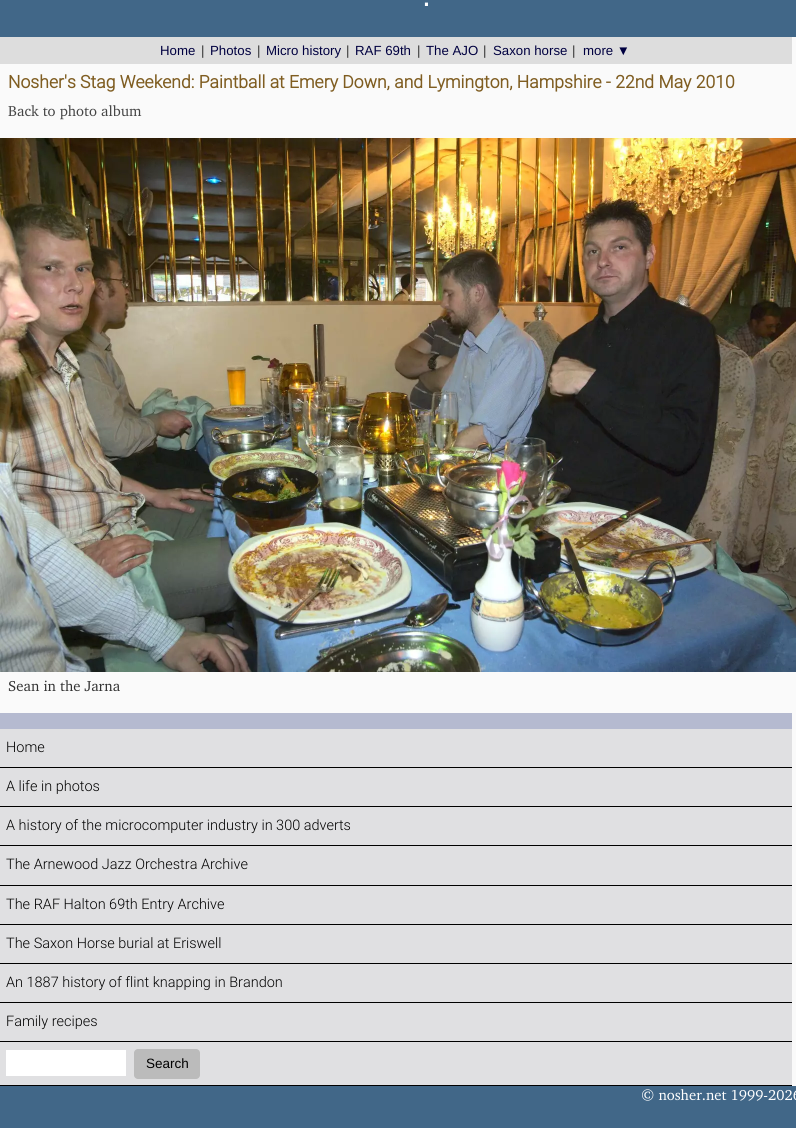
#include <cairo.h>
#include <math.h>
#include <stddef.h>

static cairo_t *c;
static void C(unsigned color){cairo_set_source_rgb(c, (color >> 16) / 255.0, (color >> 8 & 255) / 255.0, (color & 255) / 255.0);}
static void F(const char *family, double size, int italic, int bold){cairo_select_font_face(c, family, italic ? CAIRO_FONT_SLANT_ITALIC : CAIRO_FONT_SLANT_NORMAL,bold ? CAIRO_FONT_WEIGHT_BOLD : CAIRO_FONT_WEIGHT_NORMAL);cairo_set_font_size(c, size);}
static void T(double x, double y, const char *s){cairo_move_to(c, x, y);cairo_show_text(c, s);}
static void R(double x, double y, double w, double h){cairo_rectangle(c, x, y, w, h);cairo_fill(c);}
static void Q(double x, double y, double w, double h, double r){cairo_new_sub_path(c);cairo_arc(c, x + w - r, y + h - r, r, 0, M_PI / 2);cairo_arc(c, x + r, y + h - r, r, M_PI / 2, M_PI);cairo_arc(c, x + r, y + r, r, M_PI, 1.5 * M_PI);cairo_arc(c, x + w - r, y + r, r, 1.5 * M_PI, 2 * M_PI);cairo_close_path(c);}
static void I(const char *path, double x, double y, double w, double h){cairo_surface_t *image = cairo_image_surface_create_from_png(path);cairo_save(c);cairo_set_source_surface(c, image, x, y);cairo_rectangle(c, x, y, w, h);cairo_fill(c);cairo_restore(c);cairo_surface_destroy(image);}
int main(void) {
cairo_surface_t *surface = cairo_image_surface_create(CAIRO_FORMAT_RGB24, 796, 1128);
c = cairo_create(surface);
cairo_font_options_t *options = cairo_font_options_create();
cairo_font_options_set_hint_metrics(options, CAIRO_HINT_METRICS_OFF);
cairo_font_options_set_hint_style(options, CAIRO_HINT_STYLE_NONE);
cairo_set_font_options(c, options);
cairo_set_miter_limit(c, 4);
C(0xfafafa);
cairo_paint(c);
C(0x416788);
R(0,0,796,37);
F("Liberation Sans",32,0,0);
C(0xffffff);
T(422,6,".");
C(0xdddddd);
R(0,37,792,27);
F("Liberation Sans",13.25,0,0);
C(0x000040);
T(160,55,"Home");
C(0x333333);
T(201,55,"|");
C(0x000040);
T(210,55,"Photos");
C(0x333333);
T(257,55,"|");
C(0x000040);
T(266,55,"Micro history");
C(0x333333);
T(346,55,"|");
C(0x000040);
T(355,55,"RAF 69th");
C(0x333333);
T(417,55,"|");
C(0x000040);
T(426,55,"The AJO");
C(0x333333);
T(483,55,"|");
C(0x000040);
T(493,55,"Saxon horse");
C(0x333333);
T(572,55,"|");
C(0x000040);
T(583,55,"more ▼");
F("Roboto",17.6,0,1);
C(0x7f5d21);
T(8,88,"Nosher's Stag Weekend: Paintball at Emery Down, and Lymington, Hampshire - 22nd May 2010");
F("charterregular",14.75,0,0);
C(0x444444);
T(8,116,"Back to photo album");
I("1.png",0,138,796,534);
C(0x333333);
T(8,691,"Sean in the Jarna");
C(0xb5bad0);
R(0,713,792,16);
C(0xe0e0e2);
R(0,729,792,356);
C(0x000000);
R(0,767,792,1);
F("Roboto Light",14.5,0,0);
T(6,752,"Home");
R(0,806,792,1);
T(6,791,"A life in photos");
R(0,845,792,1);
T(6,830,"A history of the microcomputer industry in 300 adverts");
R(0,885,792,1);
T(6,869,"The Arnewood Jazz Orchestra Archive");
R(0,924,792,1);
T(6,909,"The RAF Halton 69th Entry Archive");
R(0,963,792,1);
T(6,948,"The Saxon Horse burial at Eriswell");
R(0,1002,792,1);
T(6,987,"An 1887 history of flint knapping in Brandon");
R(0,1041,792,1);
T(6,1026,"Family recipes");
R(0,1085,792,1);
C(0xffffff);
R(6,1050,120,26);
C(0xbbbbbb);
Q(134,1049,66,30,4);
cairo_fill(c);
F("Liberation Sans",13.5,0,0);
C(0x000000);
T(146,1068,"Search");
C(0x416788);
R(0,1086,796,42);
F("charterregular",14.75,0,0);
C(0xffffff);
T(641,1100,"© nosher.net 1999-2026");
cairo_surface_write_to_png(surface, "o.png");
cairo_font_options_destroy(options);
cairo_destroy(c);
cairo_surface_destroy(surface);
return 0;
}
